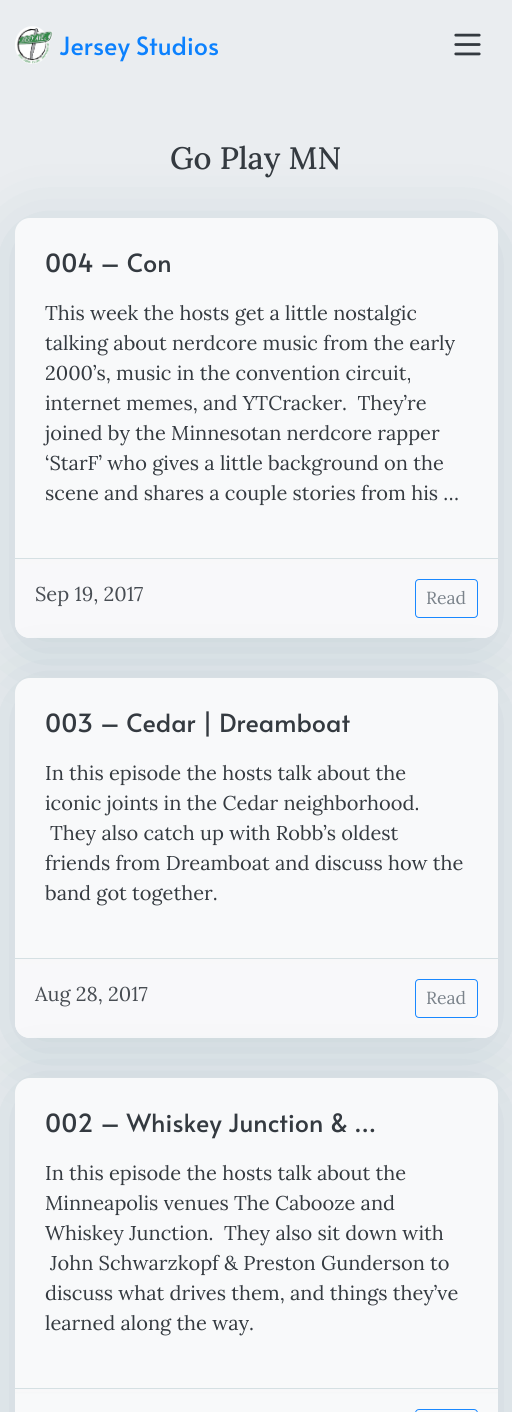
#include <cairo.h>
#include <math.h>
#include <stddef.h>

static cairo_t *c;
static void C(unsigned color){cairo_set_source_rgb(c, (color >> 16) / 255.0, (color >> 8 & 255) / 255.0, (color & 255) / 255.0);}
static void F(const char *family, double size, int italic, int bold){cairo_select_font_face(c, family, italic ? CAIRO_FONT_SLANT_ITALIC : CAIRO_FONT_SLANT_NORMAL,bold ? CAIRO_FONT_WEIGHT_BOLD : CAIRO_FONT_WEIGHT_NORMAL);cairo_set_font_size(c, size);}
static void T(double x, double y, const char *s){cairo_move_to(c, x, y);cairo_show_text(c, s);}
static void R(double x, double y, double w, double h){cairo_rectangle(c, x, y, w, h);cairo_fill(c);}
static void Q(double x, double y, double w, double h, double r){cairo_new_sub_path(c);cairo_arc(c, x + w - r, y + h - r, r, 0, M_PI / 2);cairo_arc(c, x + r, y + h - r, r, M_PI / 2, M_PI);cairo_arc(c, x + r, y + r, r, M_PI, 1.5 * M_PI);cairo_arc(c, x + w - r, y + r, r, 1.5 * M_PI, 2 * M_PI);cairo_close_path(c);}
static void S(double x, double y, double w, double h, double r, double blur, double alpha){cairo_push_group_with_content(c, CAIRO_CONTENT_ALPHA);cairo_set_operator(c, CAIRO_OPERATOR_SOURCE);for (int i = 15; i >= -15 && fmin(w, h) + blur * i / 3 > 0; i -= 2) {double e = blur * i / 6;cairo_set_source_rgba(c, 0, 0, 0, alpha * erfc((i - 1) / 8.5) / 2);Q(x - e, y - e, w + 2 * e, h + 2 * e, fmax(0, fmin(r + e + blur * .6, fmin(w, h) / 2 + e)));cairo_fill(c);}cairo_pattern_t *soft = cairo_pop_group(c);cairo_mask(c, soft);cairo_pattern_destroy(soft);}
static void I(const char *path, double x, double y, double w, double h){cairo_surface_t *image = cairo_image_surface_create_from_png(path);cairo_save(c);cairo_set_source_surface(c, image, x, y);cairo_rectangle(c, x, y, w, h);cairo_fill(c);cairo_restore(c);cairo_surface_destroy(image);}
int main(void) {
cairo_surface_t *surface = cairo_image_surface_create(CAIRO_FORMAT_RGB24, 512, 1412);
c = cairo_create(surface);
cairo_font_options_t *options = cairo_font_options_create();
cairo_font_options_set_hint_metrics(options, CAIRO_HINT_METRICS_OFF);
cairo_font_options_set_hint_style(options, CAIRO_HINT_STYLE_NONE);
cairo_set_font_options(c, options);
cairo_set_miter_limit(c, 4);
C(0xeaedf0);
cairo_paint(c);
I("1.png",15,26,38,38);
F("Alata",25,0,0);
C(0x0c81fe);
T(59,55,"Jersey Studios");
I("2.png",454,33,27,23);
F("Lora Medium",31,0,0);
C(0x343a40);
T(170,169,"Go Play MN");
C(0x0f5064);
S(15,228,483,420,15,35,.16);
C(0xf8f9fa);
Q(15,218,483,420,15);
cairo_fill(c);
cairo_save(c);
Q(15,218,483,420,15);
cairo_clip(c);
cairo_set_fill_rule(c,CAIRO_FILL_RULE_EVEN_ODD);
cairo_new_path(c);
cairo_move_to(c,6,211);
cairo_line_to(c,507,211);
cairo_line_to(c,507,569);
cairo_line_to(c,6,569);
cairo_close_path(c);
cairo_move_to(c,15,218);
cairo_line_to(c,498,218);
cairo_line_to(c,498,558);
cairo_line_to(c,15,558);
cairo_close_path(c);
cairo_clip(c);
C(0x000000);
S(15,220,483,340,0,2.5,.07);
cairo_restore(c);
F("Alata",25,0,0);
C(0x343a40);
T(45,272,"004 – Con");
F("Lora",20,0,0);
T(45,320,"This week the hosts get a little nostalgic");
T(45,350,"talking about nerdcore music from the early");
T(45,380,"2000’s, music in the convention circuit,");
T(45,410,"internet memes, and YTCracker.  They’re");
T(45,440,"joined by the Minnesotan nerdcore rapper");
T(45,470,"‘StarF’ who gives a little background on the");
T(45,500,"scene and shares a couple stories from his …");
cairo_set_source_rgba(c,0.973,0.976,0.98,0.9);
cairo_new_path(c);
cairo_move_to(c,15,558);
cairo_line_to(c,498,558);
cairo_line_to(c,498,623);
cairo_curve_to(c,498,631.5,491.5,638,483,638);
cairo_line_to(c,30,638);
cairo_curve_to(c,21.5,638,15,631.5,15,623);
cairo_close_path(c);
cairo_fill(c);
C(0xd5e0e3);
R(15,558,483,1);
C(0x484d53);
T(35,601,"Sep 19, 2017");
Q(415.5,579.5,62,38,3.5);
C(0x1988ff);
cairo_set_line_width(c,1);
cairo_stroke(c);
F("Lora",17.5,0,0);
C(0x7a828a);
T(426,604,"Read");
C(0x0f5064);
S(15,688,483,360,15,35,.16);
C(0xf8f9fa);
Q(15,678,483,360,15);
cairo_fill(c);
cairo_save(c);
Q(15,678,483,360,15);
cairo_clip(c);
cairo_set_fill_rule(c,CAIRO_FILL_RULE_EVEN_ODD);
cairo_new_path(c);
cairo_move_to(c,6,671);
cairo_line_to(c,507,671);
cairo_line_to(c,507,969);
cairo_line_to(c,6,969);
cairo_close_path(c);
cairo_move_to(c,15,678);
cairo_line_to(c,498,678);
cairo_line_to(c,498,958);
cairo_line_to(c,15,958);
cairo_close_path(c);
cairo_clip(c);
C(0x000000);
S(15,680,483,280,0,2.5,.07);
cairo_restore(c);
F("Alata",25,0,0);
C(0x343a40);
T(45,732,"003 – Cedar | Dreamboat");
F("Lora",20,0,0);
T(45,780,"In this episode the hosts talk about the");
T(45,810,"iconic joints in the Cedar neighborhood.");
T(50,840,"They also catch up with Robb’s oldest");
T(45,870,"friends from Dreamboat and discuss how the");
T(45,900,"band got together.");
cairo_set_source_rgba(c,0.973,0.976,0.98,0.9);
cairo_new_path(c);
cairo_move_to(c,15,958);
cairo_line_to(c,498,958);
cairo_line_to(c,498,1023);
cairo_curve_to(c,498,1031.5,491.5,1038,483,1038);
cairo_line_to(c,30,1038);
cairo_curve_to(c,21.5,1038,15,1031.5,15,1023);
cairo_close_path(c);
cairo_fill(c);
C(0xd5e0e3);
R(15,958,483,1);
C(0x484d53);
T(35,1001,"Aug 28, 2017");
Q(415.5,979.5,62,38,3.5);
C(0x1988ff);
cairo_stroke(c);
F("Lora",17.5,0,0);
C(0x7a828a);
T(426,1004,"Read");
C(0x0f5064);
S(15,1088,483,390,15,35,.16);
C(0xf8f9fa);
Q(15,1078,483,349,15);
cairo_fill(c);
cairo_save(c);
Q(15,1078,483,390,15);
cairo_clip(c);
cairo_set_fill_rule(c,CAIRO_FILL_RULE_EVEN_ODD);
cairo_new_path(c);
cairo_move_to(c,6,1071);
cairo_line_to(c,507,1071);
cairo_line_to(c,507,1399);
cairo_line_to(c,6,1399);
cairo_close_path(c);
cairo_move_to(c,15,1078);
cairo_line_to(c,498,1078);
cairo_line_to(c,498,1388);
cairo_line_to(c,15,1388);
cairo_close_path(c);
cairo_clip(c);
C(0x000000);
S(15,1080,483,310,0,2.5,.07);
cairo_restore(c);
F("Alata",25,0,0);
C(0x343a40);
T(45,1132,"002 – Whiskey Junction & …");
F("Lora",20,0,0);
T(45,1180,"In this episode the hosts talk about the");
T(45,1210,"Minneapolis venues The Cabooze and");
T(45,1240,"Whiskey Junction.  They also sit down with");
T(50,1270,"John Schwarzkopf & Preston Gunderson to");
T(45,1300,"discuss what drives them, and things they’ve");
T(45,1330,"learned along the way.");
cairo_set_source_rgba(c,0.973,0.976,0.98,0.9);
R(15,1389,483,3);
C(0xd5e0e3);
R(15,1388,483,1);
Q(415.5,1409.5,62,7,3.5);
C(0x1988ff);
cairo_stroke(c);
cairo_surface_write_to_png(surface, "o.png");
cairo_font_options_destroy(options);
cairo_destroy(c);
cairo_surface_destroy(surface);
return 0;
}
